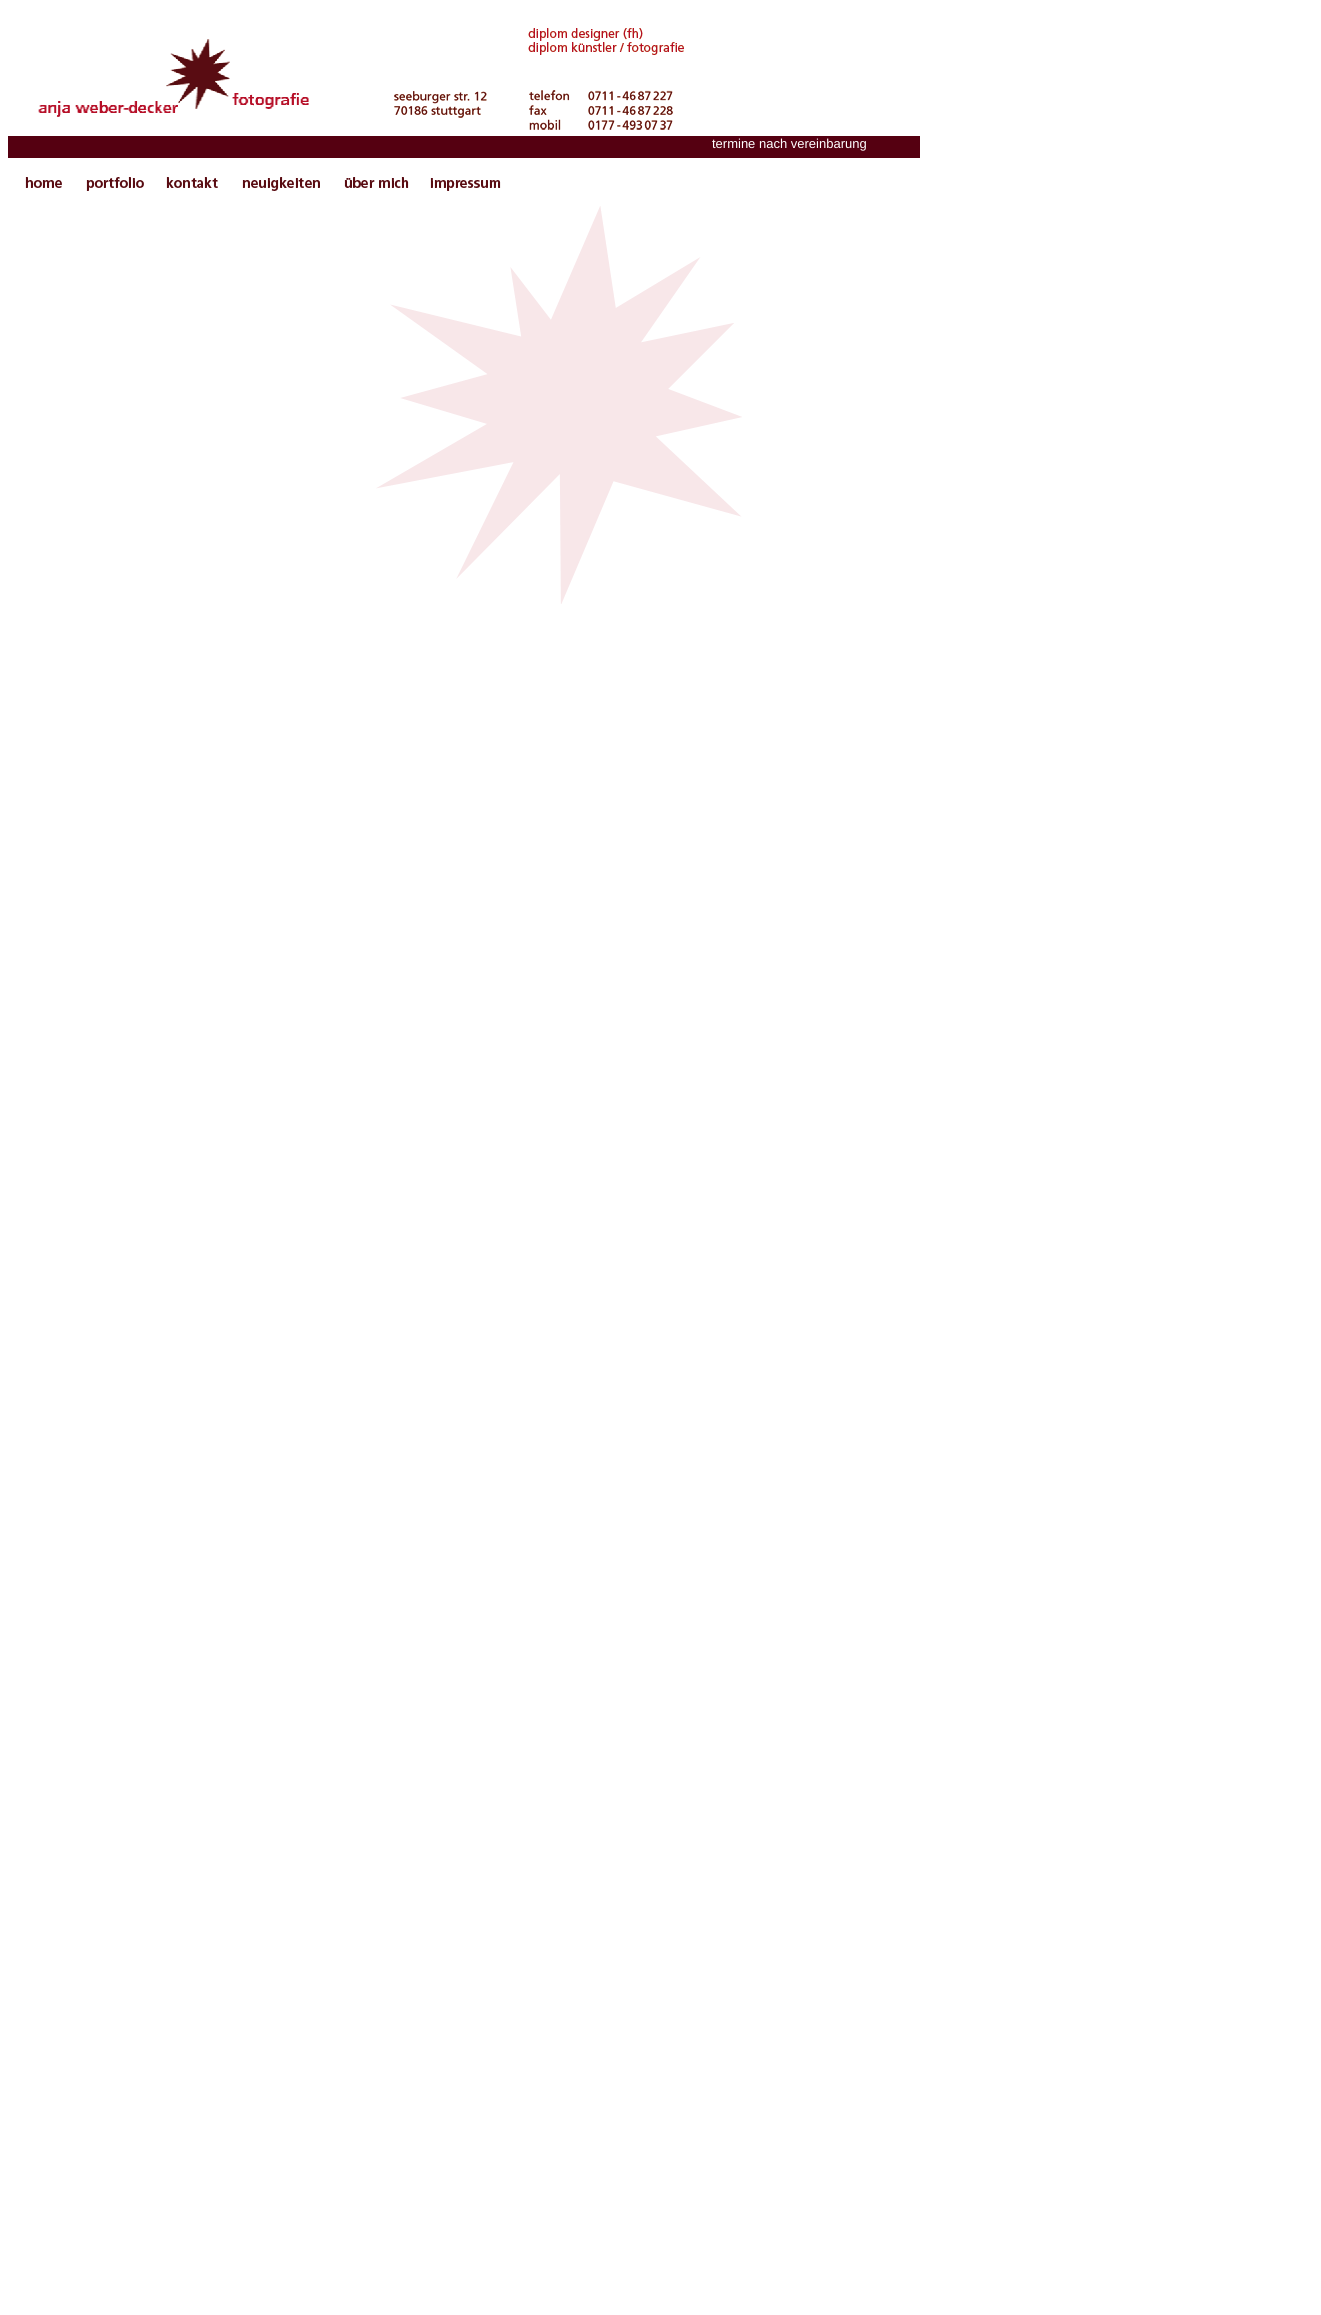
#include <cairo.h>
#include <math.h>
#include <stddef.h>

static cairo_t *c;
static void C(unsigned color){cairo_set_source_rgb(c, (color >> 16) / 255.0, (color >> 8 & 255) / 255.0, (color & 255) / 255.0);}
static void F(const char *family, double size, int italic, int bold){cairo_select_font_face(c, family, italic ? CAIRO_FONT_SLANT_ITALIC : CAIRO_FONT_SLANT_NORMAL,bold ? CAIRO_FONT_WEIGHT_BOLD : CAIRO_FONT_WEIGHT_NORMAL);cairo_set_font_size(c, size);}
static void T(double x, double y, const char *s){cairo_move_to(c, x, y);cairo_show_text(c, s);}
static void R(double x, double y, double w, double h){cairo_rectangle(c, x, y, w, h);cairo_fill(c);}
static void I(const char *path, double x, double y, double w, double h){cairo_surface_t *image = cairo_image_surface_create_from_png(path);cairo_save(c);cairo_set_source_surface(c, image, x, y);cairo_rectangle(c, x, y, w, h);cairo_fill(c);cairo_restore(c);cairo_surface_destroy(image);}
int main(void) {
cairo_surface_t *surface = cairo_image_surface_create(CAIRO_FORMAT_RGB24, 1321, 2315);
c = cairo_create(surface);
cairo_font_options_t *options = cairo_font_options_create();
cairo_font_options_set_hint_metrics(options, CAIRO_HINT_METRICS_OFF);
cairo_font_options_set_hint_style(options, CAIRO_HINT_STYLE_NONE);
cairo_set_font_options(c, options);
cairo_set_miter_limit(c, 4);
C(0xffffff);
cairo_paint(c);
I("1.png",38,39,271,78);
I("2.png",394,28,290,102);
C(0x550011);
R(8,136,912,22);
F("Liberation Sans",13,0,0);
C(0xffffff);
T(712,148,"termine nach vereinbarung");
I("3.png",25,177,37,11);
I("4.png",86,177,58,14);
I("5.png",166,177,52,11);
I("6.png",242,177,78,14);
I("7.png",344,177,65,11);
I("8.png",430,178,71,13);
I("9.png",376,206,366,398);
cairo_surface_write_to_png(surface, "o.png");
cairo_font_options_destroy(options);
cairo_destroy(c);
cairo_surface_destroy(surface);
return 0;
}
